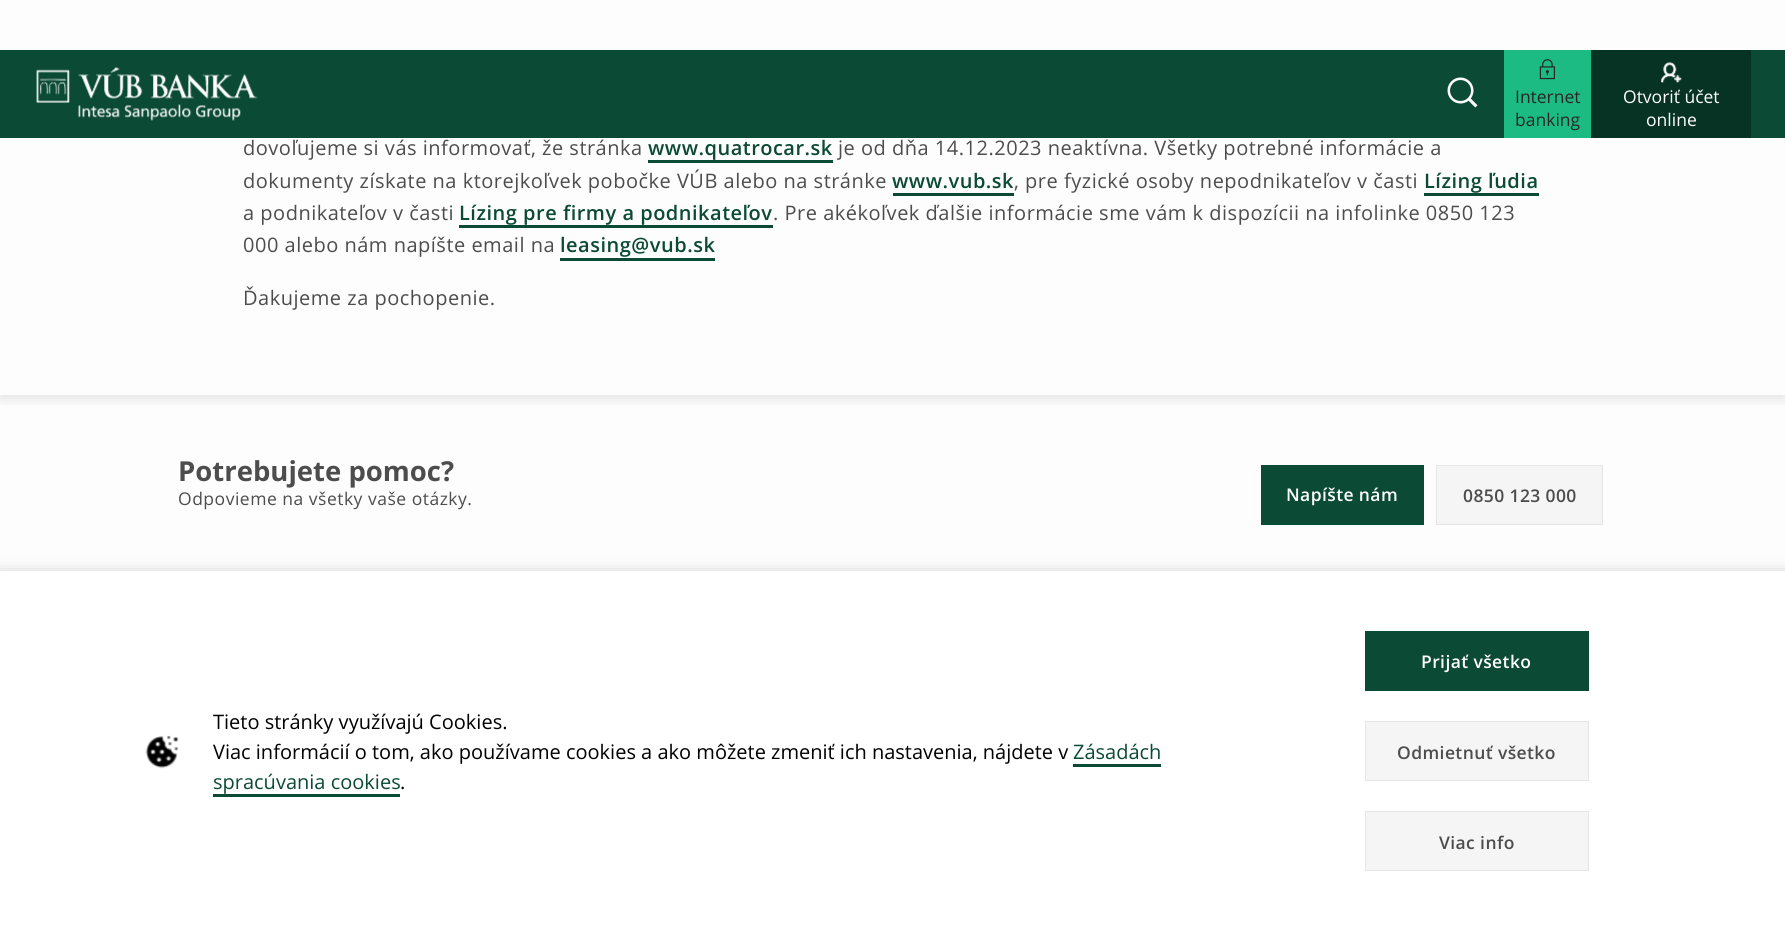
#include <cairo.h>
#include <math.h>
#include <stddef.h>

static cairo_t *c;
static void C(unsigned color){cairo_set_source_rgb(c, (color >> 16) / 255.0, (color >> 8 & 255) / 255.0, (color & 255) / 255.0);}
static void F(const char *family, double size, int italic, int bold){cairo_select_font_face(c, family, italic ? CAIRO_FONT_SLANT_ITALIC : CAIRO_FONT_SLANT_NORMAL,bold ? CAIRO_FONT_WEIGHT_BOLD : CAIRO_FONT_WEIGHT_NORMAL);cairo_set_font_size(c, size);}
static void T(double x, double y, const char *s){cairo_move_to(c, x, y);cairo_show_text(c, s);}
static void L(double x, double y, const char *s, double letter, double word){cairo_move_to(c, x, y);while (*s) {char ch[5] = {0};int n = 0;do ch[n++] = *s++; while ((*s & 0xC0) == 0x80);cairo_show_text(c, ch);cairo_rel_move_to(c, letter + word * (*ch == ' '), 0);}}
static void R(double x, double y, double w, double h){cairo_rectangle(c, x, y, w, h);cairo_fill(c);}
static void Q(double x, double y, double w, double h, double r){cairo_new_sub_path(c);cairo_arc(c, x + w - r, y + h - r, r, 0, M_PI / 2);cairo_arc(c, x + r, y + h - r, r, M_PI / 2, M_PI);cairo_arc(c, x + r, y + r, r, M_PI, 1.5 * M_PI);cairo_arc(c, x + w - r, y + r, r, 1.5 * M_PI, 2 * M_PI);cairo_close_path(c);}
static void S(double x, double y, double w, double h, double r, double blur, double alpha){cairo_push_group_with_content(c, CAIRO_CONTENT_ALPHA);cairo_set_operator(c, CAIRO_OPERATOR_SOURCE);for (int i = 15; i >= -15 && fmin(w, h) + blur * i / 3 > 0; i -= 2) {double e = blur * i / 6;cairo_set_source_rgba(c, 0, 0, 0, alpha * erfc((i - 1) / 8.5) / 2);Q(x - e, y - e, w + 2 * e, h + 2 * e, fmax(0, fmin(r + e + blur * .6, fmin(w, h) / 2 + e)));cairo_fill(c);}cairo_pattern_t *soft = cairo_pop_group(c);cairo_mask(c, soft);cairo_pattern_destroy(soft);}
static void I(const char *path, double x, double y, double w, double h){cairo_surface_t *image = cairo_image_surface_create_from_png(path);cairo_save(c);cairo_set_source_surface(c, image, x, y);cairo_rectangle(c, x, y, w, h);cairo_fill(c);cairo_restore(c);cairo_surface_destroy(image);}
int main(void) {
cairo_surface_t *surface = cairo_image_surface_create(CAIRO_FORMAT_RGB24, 1785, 931);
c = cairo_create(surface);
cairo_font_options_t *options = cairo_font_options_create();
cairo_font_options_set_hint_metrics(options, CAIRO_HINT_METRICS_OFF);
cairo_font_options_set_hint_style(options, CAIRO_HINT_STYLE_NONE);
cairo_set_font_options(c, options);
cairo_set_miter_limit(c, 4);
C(0xfdfdfd);
cairo_paint(c);
cairo_save(c);
cairo_rectangle(c,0,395,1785,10);
cairo_clip(c);
C(0x000000);
S(0,-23,1785,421,0,7.5,.12);
cairo_restore(c);
C(0x0b4a35);
R(0,50,1785,88);
I("1.png",36,67,222,54);
I("2.png",1447,77,31,31);
C(0x1cbb84);
R(1504,50,87,88);
I("3.png",1539,59,16,21);
F("Open Sans",17.5,0,0);
C(0x262626);
T(1515,103,"Internet");
T(1515,126,"banking");
C(0x073325);
R(1591,50,160,88);
I("4.png",1661,62,21,21);
C(0xffffff);
T(1623,103,"Otvoriť účet");
T(1646,126,"online");
F("Open Sans",20,0,0);
C(0x4d4d4d);
L(243,155,"dovoľujeme si vás informovať, že stránka",.5,0);
F("Open Sans SemiBold",20,0,0);
C(0x0b4a35);
L(648,155,"www.quatrocar.sk",.5,0);
R(648,160,185,3);
F("Open Sans",20,0,0);
C(0x4d4d4d);
L(838,155,"je od dňa 14.12.2023 neaktívna. Všetky potrebné informácie a",.5,0);
L(243,188,"dokumenty získate na ktorejkoľvek pobočke VÚB alebo na stránke",.5,0);
F("Open Sans SemiBold",20,0,0);
C(0x0b4a35);
L(892,188,"www.vub.sk",.5,0);
R(893,193,121,3);
F("Open Sans",20,0,0);
C(0x4d4d4d);
L(1014,188,", pre fyzické osoby nepodnikateľov v časti",.5,0);
F("Open Sans SemiBold",20,0,0);
C(0x0b4a35);
L(1424,188,"Lízing ľudia",.5,0);
R(1424,193,115,3);
F("Open Sans",20,0,0);
C(0x4d4d4d);
L(243,220,"a podnikateľov v časti",.5,0);
F("Open Sans SemiBold",20,0,0);
C(0x0b4a35);
L(459,220,"Lízing pre firmy a podnikateľov",.5,0);
R(459,225,314,3);
F("Open Sans",20,0,0);
C(0x4d4d4d);
L(773,220,". Pre akékoľvek ďalšie informácie sme vám k dispozícii na infolinke 0850 123",.5,0);
L(243,252,"000 alebo nám napíšte email na",.5,0);
F("Open Sans SemiBold",20,0,0);
C(0x0b4a35);
L(560,252,"leasing@vub.sk",.5,0);
R(560,258,155,3);
F("Open Sans",20,0,0);
C(0x4d4d4d);
L(243,305,"Ďakujeme za pochopenie.",.5,0);
F("Open Sans",27.5,0,1);
T(178,481,"Potrebujete pomoc?");
F("Open Sans",17.5,0,0);
L(178,505,"Odpovieme na všetky vaše otázky.",.5,0);
C(0x0b4a35);
R(1261,465,163,60);
F("Open Sans SemiBold",17.5,0,0);
C(0xffffff);
L(1286,501,"Napíšte nám",.4,0);
C(0xf5f5f5);
cairo_rectangle(c,1436.5,465.5,166,59);
cairo_fill_preserve(c);
C(0xe6e6e6);
cairo_set_line_width(c,1);
cairo_stroke(c);
C(0x4d4d4d);
L(1463,502,"0850 123 000",.4,0);
C(0x919191);
S(0,579,1785,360,0,9.5,1);
C(0xffffff);
R(0,571,1785,360);
I("5.png",145,735,34,34);
F("Open Sans",20,0,0);
C(0x000000);
T(213,729,"Tieto stránky využívajú Cookies.");
T(213,759,"Viac informácií o tom, ako používame cookies a ako môžete zmeniť ich nastavenia, nájdete v");
C(0x0b4a35);
T(1073,759,"Zásadách");
R(1073,764,88,3);
T(213,789,"spracúvania cookies");
R(213,794,187,3);
C(0x000000);
T(400,789,".");
C(0x0b4a35);
R(1365,631,224,60);
F("Open Sans SemiBold",17.5,0,0);
C(0xffffff);
L(1421,668,"Prijať všetko",.4,0);
C(0xf5f5f5);
cairo_rectangle(c,1365.5,721.5,223,59);
cairo_fill_preserve(c);
C(0xe6e6e6);
cairo_stroke(c);
C(0x4d4d4d);
L(1397,759,"Odmietnuť všetko",.4,0);
C(0xf5f5f5);
cairo_rectangle(c,1365.5,811.5,223,59);
cairo_fill_preserve(c);
C(0xe6e6e6);
cairo_stroke(c);
C(0x4d4d4d);
L(1439,849,"Viac info",.4,0);
cairo_surface_write_to_png(surface, "o.png");
cairo_font_options_destroy(options);
cairo_destroy(c);
cairo_surface_destroy(surface);
return 0;
}
